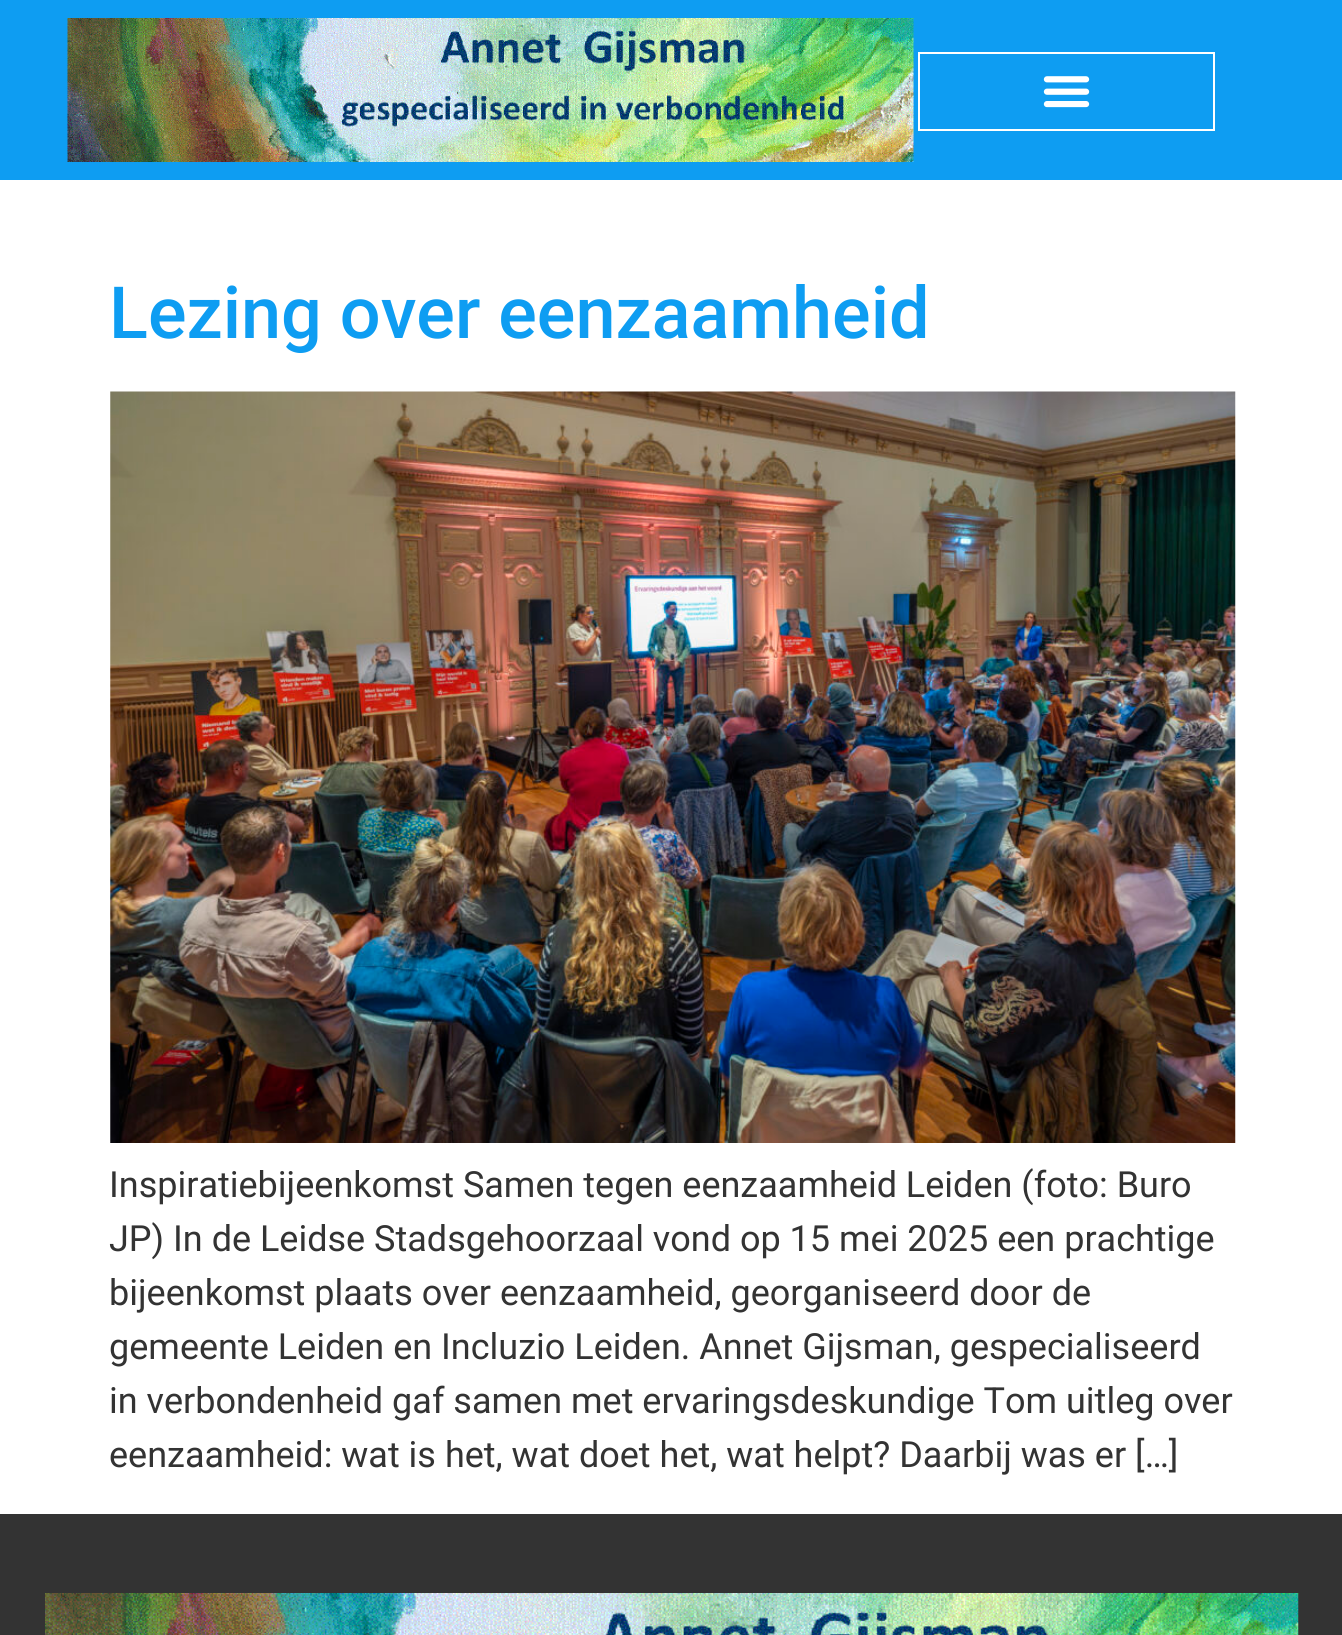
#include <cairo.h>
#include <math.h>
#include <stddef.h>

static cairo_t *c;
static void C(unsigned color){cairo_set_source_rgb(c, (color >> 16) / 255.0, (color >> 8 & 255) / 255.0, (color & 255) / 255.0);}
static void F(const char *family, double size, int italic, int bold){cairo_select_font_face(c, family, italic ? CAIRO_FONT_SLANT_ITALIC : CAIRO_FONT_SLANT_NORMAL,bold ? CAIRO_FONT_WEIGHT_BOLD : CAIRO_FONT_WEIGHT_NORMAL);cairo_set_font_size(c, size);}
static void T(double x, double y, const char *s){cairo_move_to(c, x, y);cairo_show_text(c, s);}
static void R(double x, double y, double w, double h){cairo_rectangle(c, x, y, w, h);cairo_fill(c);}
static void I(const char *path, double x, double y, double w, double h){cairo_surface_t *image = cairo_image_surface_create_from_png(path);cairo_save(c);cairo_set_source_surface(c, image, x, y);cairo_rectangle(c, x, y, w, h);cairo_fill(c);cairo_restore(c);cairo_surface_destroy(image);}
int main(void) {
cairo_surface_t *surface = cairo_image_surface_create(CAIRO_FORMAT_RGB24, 1342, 1635);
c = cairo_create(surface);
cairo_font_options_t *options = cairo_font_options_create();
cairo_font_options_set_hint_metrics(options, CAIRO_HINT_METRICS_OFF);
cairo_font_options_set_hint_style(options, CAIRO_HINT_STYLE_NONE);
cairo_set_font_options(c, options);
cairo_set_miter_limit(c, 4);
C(0xffffff);
cairo_paint(c);
C(0x0e9df2);
R(0,0,1342,180);
I("1.png",67,18,847,144);
cairo_rectangle(c,919,53,295,77);
C(0xffffff);
cairo_stroke(c);
I("2.png",1043,76,47,32);
F("Roboto Medium",72,0,0);
C(0x0e9df2);
T(109,338,"Lezing over eenzaamheid");
I("3.png",110,391,1126,752);
F("Roboto",36,0,0);
C(0x333333);
T(109,1197,"Inspiratiebijeenkomst Samen tegen eenzaamheid Leiden (foto: Buro");
T(109,1251,"JP) In de Leidse Stadsgehoorzaal vond op 15 mei 2025 een prachtige");
T(109,1305,"bijeenkomst plaats over eenzaamheid, georganiseerd door de");
T(109,1359,"gemeente Leiden en Incluzio Leiden. Annet Gijsman, gespecialiseerd");
T(109,1413,"in verbondenheid gaf samen met ervaringsdeskundige Tom uitleg over");
T(109,1467,"eenzaamheid: wat is het, wat doet het, wat helpt? Daarbij was er […]");
R(0,1514,1342,121);
I("4.png",45,1593,1254,42);
cairo_surface_write_to_png(surface, "o.png");
cairo_font_options_destroy(options);
cairo_destroy(c);
cairo_surface_destroy(surface);
return 0;
}
